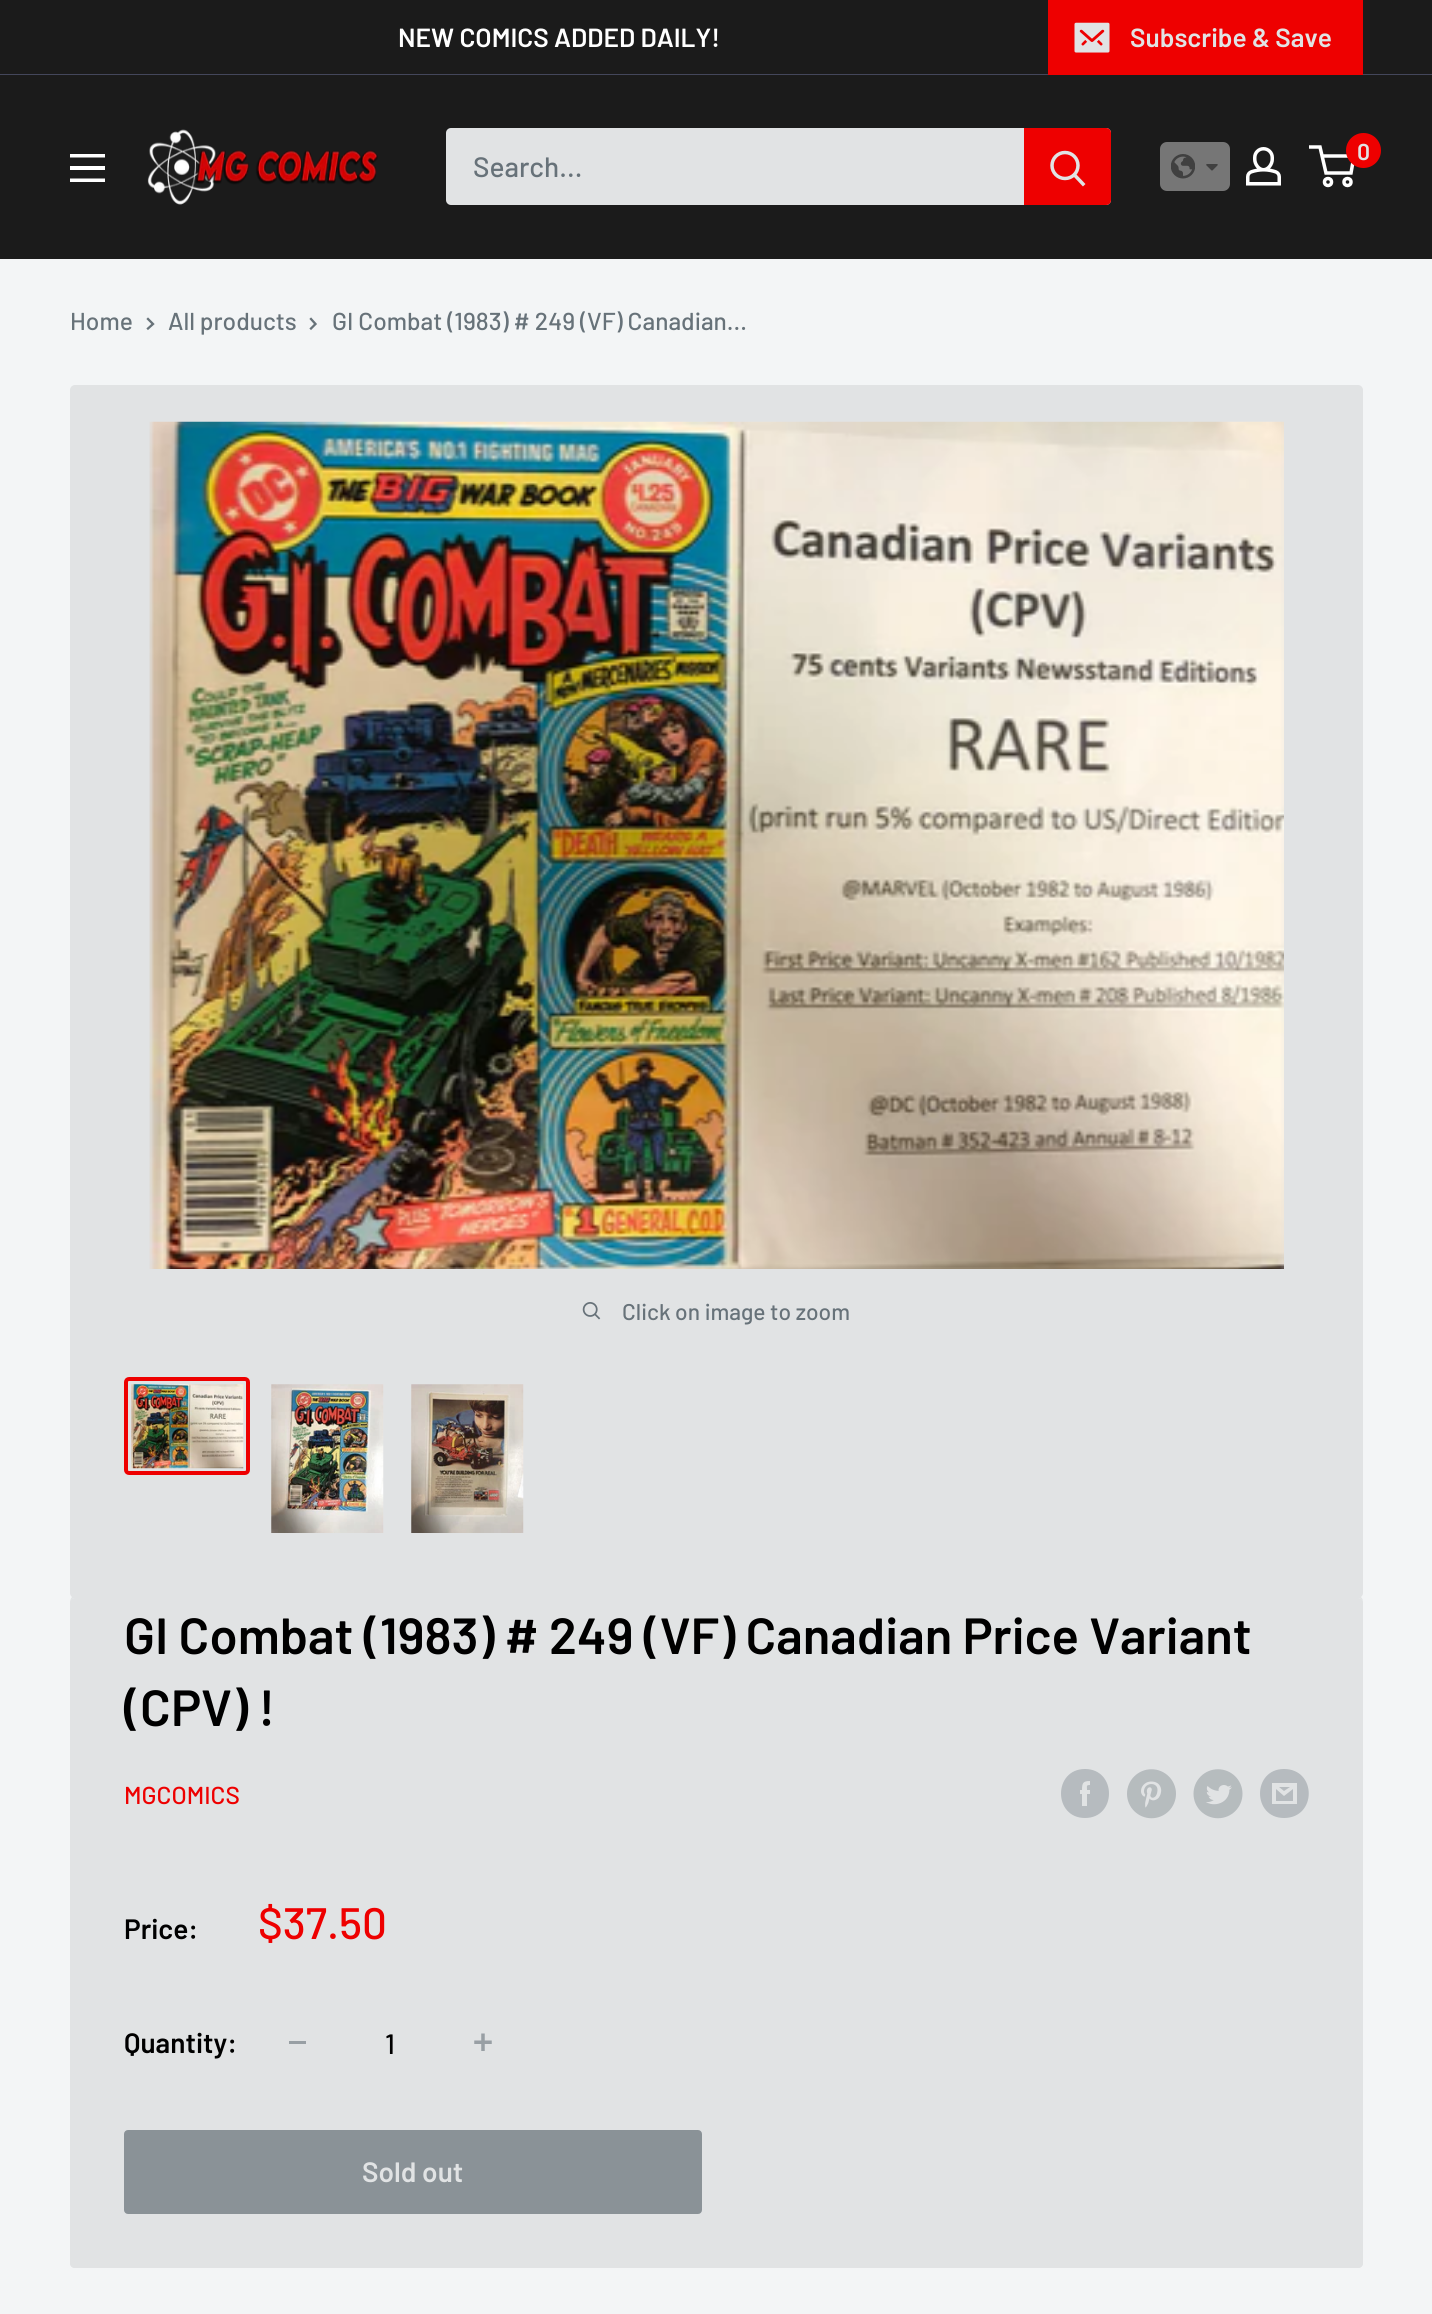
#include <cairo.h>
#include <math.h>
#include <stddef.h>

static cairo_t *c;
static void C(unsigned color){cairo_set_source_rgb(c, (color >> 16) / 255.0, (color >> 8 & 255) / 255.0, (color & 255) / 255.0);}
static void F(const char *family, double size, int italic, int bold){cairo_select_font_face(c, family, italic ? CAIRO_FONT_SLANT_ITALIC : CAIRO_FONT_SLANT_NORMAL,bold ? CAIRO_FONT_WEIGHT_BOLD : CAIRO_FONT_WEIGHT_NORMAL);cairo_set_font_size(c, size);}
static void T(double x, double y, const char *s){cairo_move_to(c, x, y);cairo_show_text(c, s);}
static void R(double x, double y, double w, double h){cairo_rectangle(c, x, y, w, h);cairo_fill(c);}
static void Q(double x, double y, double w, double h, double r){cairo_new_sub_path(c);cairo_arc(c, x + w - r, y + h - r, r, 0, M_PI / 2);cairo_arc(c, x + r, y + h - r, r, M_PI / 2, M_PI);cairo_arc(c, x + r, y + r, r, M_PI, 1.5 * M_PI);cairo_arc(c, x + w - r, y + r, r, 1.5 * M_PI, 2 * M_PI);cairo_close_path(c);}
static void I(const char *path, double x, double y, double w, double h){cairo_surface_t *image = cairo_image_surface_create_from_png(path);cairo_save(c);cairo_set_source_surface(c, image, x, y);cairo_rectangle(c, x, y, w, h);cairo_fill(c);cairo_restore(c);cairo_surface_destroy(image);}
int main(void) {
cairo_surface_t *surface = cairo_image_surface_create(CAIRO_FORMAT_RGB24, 1432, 2314);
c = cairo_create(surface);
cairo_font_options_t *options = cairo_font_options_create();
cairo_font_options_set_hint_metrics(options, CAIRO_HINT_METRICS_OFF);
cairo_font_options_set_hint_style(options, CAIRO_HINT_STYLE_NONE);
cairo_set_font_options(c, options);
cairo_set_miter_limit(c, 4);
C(0xf3f5f6);
cairo_paint(c);
C(0x1b1b1b);
R(0,0,1432,74);
C(0x44475b);
R(0,74,1432,1);
F("Barlow SemiBold",26.25,0,0);
C(0xffffff);
T(398,47,"NEW COMICS ADDED DAILY!");
C(0xee0000);
cairo_new_path(c);
cairo_move_to(c,1048,2);
cairo_line_to(c,1048,75);
cairo_line_to(c,1363,75);
cairo_line_to(c,1363,74);
cairo_line_to(c,1048,74);
cairo_close_path(c);
cairo_fill(c);
R(1048,0,315,74);
I("1.png",1074,22,36,31);
C(0xe1e3e4);
T(1130,47,"Subscribe & Save");
C(0x1b1b1b);
R(0,75,1432,184);
I("2.png",147,129,231,76);
C(0x767676);
Q(1160,142,70,49,7);
cairo_fill(c);
I("3.png",1171,154,24,25);
I("4.png",1206,164,12,7);
I("5.png",1246,147,35,39);
cairo_arc(c,1328,182,3.5,0,2 * M_PI);
C(0xffffff);
cairo_set_line_width(c,3.5);
cairo_stroke(c);
cairo_arc(c,1347.5,182,3.5,0,2 * M_PI);
cairo_stroke(c);
cairo_new_path(c);
cairo_move_to(c,1322,156);
cairo_line_to(c,1354,156);
cairo_line_to(c,1351,173);
cairo_line_to(c,1326,173);
cairo_line_to(c,1320,147);
cairo_line_to(c,1309,147);
cairo_stroke(c);
C(0xee0000);
cairo_arc(c,1363.5,150.5,17.5,0,2 * M_PI);
cairo_fill(c);
F("Barlow SemiBold",23,0,0);
C(0xe1e3e4);
T(1357,160,"0");
C(0xffffff);
cairo_set_fill_rule(c,CAIRO_FILL_RULE_EVEN_ODD);
cairo_new_path(c);
cairo_move_to(c,70,178.5);
cairo_line_to(c,105,178.5);
cairo_line_to(c,105,182);
cairo_line_to(c,70,182);
cairo_close_path(c);
cairo_move_to(c,70,154);
cairo_line_to(c,105,154);
cairo_line_to(c,105,157.5);
cairo_line_to(c,70,157.5);
cairo_close_path(c);
cairo_move_to(c,70,166);
cairo_line_to(c,105,166);
cairo_line_to(c,105,170);
cairo_line_to(c,70,170);
cairo_close_path(c);
cairo_fill(c);
C(0xe1e3e4);
Q(446,128,665,77,5);
cairo_fill(c);
F("Barlow Medium",28,0,0);
C(0x677279);
T(473,177,"Search...");
C(0xee0000);
cairo_new_path(c);
cairo_move_to(c,1024,128);
cairo_line_to(c,1106,128);
cairo_curve_to(c,1109,128,1111,130,1111,133);
cairo_line_to(c,1111,200);
cairo_curve_to(c,1111,203,1109,205,1106,205);
cairo_line_to(c,1024,205);
cairo_close_path(c);
cairo_fill(c);
cairo_new_path(c);
cairo_move_to(c,1083,184);
cairo_line_to(c,1074.5,175);
C(0xe1e3e4);
cairo_set_line_cap(c,CAIRO_LINE_CAP_SQUARE);
cairo_stroke(c);
cairo_arc(c,1065,165.5,13,0,2 * M_PI);
cairo_set_line_cap(c,CAIRO_LINE_CAP_BUTT);
cairo_stroke(c);
F("Barlow Medium",24.5,0,0);
C(0x677279);
T(70,330,"Home");
cairo_new_path(c);
cairo_move_to(c,148,319);
cairo_line_to(c,153,324);
cairo_line_to(c,148,328.5);
cairo_set_line_width(c,2.3);
cairo_set_line_cap(c,CAIRO_LINE_CAP_SQUARE);
cairo_stroke(c);
T(168,330,"All products");
cairo_new_path(c);
cairo_move_to(c,311,319);
cairo_line_to(c,315.5,324);
cairo_line_to(c,311,328.5);
cairo_stroke(c);
T(332,330,"GI Combat (1983) # 249 (VF) Canadian...");
C(0xe1e3e4);
Q(71,386,1291,1211,4);
cairo_fill_preserve(c);
cairo_set_line_width(c,2);
cairo_set_line_cap(c,CAIRO_LINE_CAP_BUTT);
cairo_stroke(c);
I("6.png",149,421,1135,848);
I("7.png",582,1302,19,18);
F("Barlow Medium",22.75,0,0);
C(0x677279);
T(622,1320,"Click on image to zoom");
Q(126,1379,122,94,3);
C(0xee0000);
cairo_set_line_width(c,4);
cairo_stroke(c);
I("8.png",131,1384,113,85);
I("9.png",271,1384,113,149);
I("10.png",411,1384,113,149);
C(0xe1e3e4);
cairo_set_fill_rule(c,CAIRO_FILL_RULE_WINDING);
cairo_new_path(c);
cairo_move_to(c,75,1596);
cairo_curve_to(c,71,1596,70,1600,70,1603);
cairo_curve_to(c,70,1600,72,1598,75,1598);
cairo_line_to(c,1358,1598);
cairo_curve_to(c,1360,1598,1362,1599,1363,1601);
cairo_curve_to(c,1363,1599,1361,1596,1358,1596);
cairo_close_path(c);
cairo_fill(c);
Q(70,1598,1293,670,5);
cairo_fill(c);
cairo_set_fill_rule(c,CAIRO_FILL_RULE_EVEN_ODD);
cairo_new_path(c);
cairo_move_to(c,75,1598);
cairo_line_to(c,1358,1598);
cairo_curve_to(c,1361,1598,1363,1600,1363,1603);
cairo_line_to(c,1363,2263);
cairo_curve_to(c,1363,2266,1361,2268,1358,2268);
cairo_line_to(c,75,2268);
cairo_curve_to(c,72,2268,70,2266,70,2263);
cairo_line_to(c,70,1603);
cairo_curve_to(c,70,1600,72,1598,75,1598);
cairo_close_path(c);
cairo_move_to(c,75,1598);
cairo_line_to(c,1358,1598);
cairo_curve_to(c,1360,1598,1362,1600,1362,1603);
cairo_line_to(c,1362,2263);
cairo_curve_to(c,1362,2265,1360,2266,1358,2266);
cairo_line_to(c,75,2266);
cairo_curve_to(c,73,2266,72,2265,72,2263);
cairo_line_to(c,72,1603);
cairo_curve_to(c,72,1600,73,1598,75,1598);
cairo_close_path(c);
cairo_fill(c);
F("Barlow SemiBold",50.75,0,0);
C(0x000000);
T(124,1654,"GI Combat (1983) # 249 (VF) Canadian Price Variant");
T(124,1726,"(CPV) !");
F("Barlow Medium",24.5,0,0);
C(0xee0000);
T(124,1804,"MGCOMICS");
C(0xb6bbbf);
cairo_new_path(c);
cairo_move_to(c,1085,1818);
cairo_curve_to(c,1053,1818,1053,1769,1085,1769);
cairo_curve_to(c,1117,1769,1117,1818,1085,1818);
cairo_close_path(c);
cairo_move_to(c,1090,1790);
cairo_line_to(c,1087,1790);
cairo_curve_to(c,1087,1786,1086,1785,1090,1785);
cairo_line_to(c,1090,1781);
cairo_curve_to(c,1083,1781,1082,1783,1082,1790);
cairo_line_to(c,1080,1790);
cairo_line_to(c,1080,1794);
cairo_line_to(c,1082,1794);
cairo_line_to(c,1082,1806);
cairo_line_to(c,1087,1806);
cairo_line_to(c,1087,1794);
cairo_line_to(c,1090,1794);
cairo_close_path(c);
cairo_fill(c);
I("11.png",1127,1769,49,50);
I("12.png",1193,1769,50,50);
cairo_set_fill_rule(c,CAIRO_FILL_RULE_WINDING);
cairo_new_path(c);
cairo_move_to(c,1284,1818);
cairo_curve_to(c,1252,1818,1252,1769,1284,1769);
cairo_curve_to(c,1317,1769,1317,1818,1284,1818);
cairo_close_path(c);
cairo_move_to(c,1279,1787);
cairo_line_to(c,1290,1787);
cairo_line_to(c,1284,1791);
cairo_close_path(c);
cairo_move_to(c,1293,1789);
cairo_line_to(c,1293,1801);
cairo_line_to(c,1276,1801);
cairo_line_to(c,1276,1789);
cairo_line_to(c,1284,1796);
cairo_close_path(c);
cairo_move_to(c,1297,1783);
cairo_line_to(c,1272,1783);
cairo_line_to(c,1272,1804);
cairo_line_to(c,1297,1804);
cairo_close_path(c);
cairo_fill(c);
F("Barlow SemiBold",28,0,0);
C(0x000000);
T(124,1939,"Price:");
F("Barlow Medium",44,0,0);
C(0xee0000);
T(258,1939,"$37.50");
F("Barlow SemiBold",28,0,0);
C(0x000000);
T(124,2053,"Quantity:");
C(0x989fa4);
R(289,2041,17,3);
F("Barlow Medium",28,0,0);
C(0x000000);
T(385,2054,"1");
I("13.png",474,2033,18,18);
C(0x8a9297);
Q(125,2131,576,82,3);
cairo_fill_preserve(c);
cairo_set_line_width(c,2);
cairo_stroke(c);
F("Barlow SemiBold",28,0,0);
C(0xe1e3e4);
T(362,2182,"Sold out");
cairo_surface_write_to_png(surface, "o.png");
cairo_font_options_destroy(options);
cairo_destroy(c);
cairo_surface_destroy(surface);
return 0;
}
